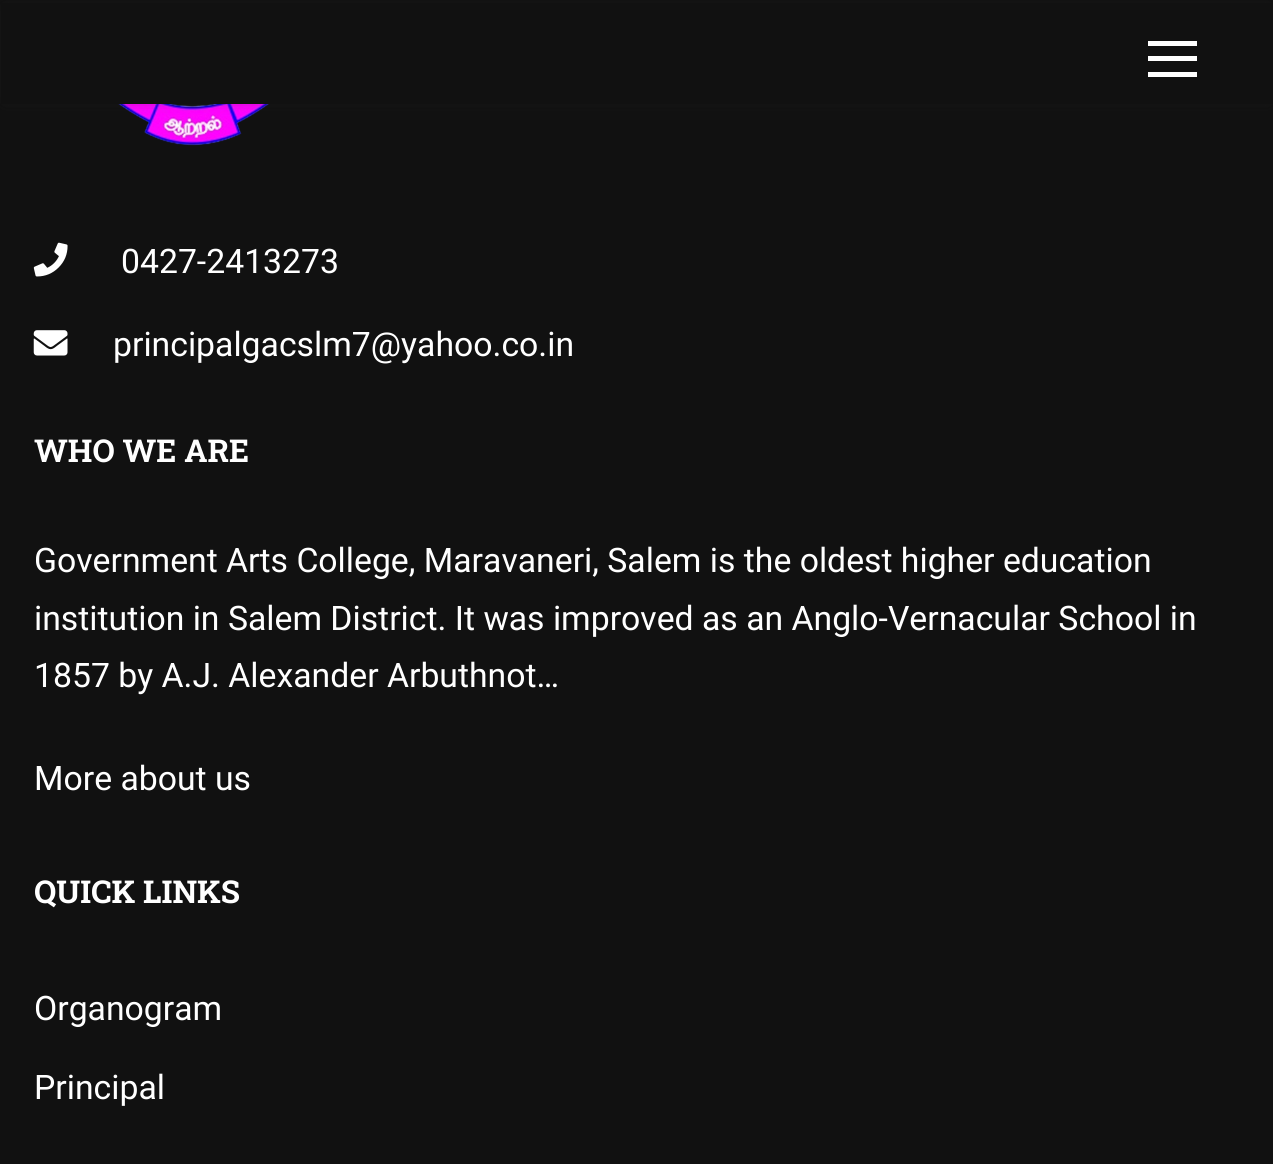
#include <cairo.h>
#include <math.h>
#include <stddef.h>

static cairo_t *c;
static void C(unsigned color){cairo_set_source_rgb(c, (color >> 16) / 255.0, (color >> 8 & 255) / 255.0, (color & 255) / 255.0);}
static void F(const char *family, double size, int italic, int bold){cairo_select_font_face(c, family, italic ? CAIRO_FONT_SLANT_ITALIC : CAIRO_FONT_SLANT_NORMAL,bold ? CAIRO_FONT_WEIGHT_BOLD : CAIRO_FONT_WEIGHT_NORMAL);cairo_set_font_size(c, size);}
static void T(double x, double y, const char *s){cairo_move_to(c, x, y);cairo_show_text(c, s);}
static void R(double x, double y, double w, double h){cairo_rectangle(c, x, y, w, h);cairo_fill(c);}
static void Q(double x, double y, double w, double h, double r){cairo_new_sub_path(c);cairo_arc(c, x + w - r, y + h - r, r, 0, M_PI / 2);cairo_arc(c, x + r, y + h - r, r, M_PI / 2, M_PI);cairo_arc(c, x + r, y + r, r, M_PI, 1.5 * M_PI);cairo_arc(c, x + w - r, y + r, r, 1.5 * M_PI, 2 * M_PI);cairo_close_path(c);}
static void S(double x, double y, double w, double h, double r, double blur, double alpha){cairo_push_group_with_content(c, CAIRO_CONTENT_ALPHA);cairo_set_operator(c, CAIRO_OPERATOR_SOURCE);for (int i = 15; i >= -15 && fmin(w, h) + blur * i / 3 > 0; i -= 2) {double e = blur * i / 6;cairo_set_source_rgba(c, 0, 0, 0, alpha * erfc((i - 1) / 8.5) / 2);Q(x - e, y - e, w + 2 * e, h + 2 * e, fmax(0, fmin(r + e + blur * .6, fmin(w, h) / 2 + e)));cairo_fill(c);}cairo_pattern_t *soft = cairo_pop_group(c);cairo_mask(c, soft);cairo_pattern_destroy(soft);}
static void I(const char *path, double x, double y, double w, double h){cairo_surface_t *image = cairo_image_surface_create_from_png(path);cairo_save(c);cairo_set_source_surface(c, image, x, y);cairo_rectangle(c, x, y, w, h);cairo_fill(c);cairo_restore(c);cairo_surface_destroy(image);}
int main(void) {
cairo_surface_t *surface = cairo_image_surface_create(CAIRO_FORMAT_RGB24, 1273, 1164);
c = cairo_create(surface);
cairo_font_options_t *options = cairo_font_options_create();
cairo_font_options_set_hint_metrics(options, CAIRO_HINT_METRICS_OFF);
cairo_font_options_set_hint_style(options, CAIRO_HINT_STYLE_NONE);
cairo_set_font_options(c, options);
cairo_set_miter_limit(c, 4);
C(0x111111);
cairo_paint(c);
I("1.png",118,104,151,42);
C(0x2a2a2a);
S(5,7,1264,94,0,5.5,.4);
C(0x111111);
R(1,3,1272,101);
C(0xffffff);
R(1148,41,49,5);
R(1148,56,49,5);
R(1148,72,49,5);
I("2.png",33,242,35,35);
F("Roboto",33.75,0,0);
T(121,273,"0427-2413273");
I("3.png",33,330,35,26);
T(113,356,"principalgacslm7@yahoo.co.in");
F("Roboto Slab",31.5,0,1);
T(34,462,"WHO WE ARE");
F("Roboto",33.75,0,0);
T(34,572,"Government Arts College, Maravaneri, Salem is the oldest higher education");
T(34,630,"institution in Salem District. It was improved as an Anglo-Vernacular School in");
T(34,687,"1857 by A.J. Alexander Arbuthnot…");
T(34,790,"More about us");
F("Roboto Slab",31.5,0,1);
T(34,903,"QUICK LINKS");
F("Roboto",33.75,0,0);
T(34,1020,"Organogram");
T(34,1099,"Principal");
cairo_surface_write_to_png(surface, "o.png");
cairo_font_options_destroy(options);
cairo_destroy(c);
cairo_surface_destroy(surface);
return 0;
}
